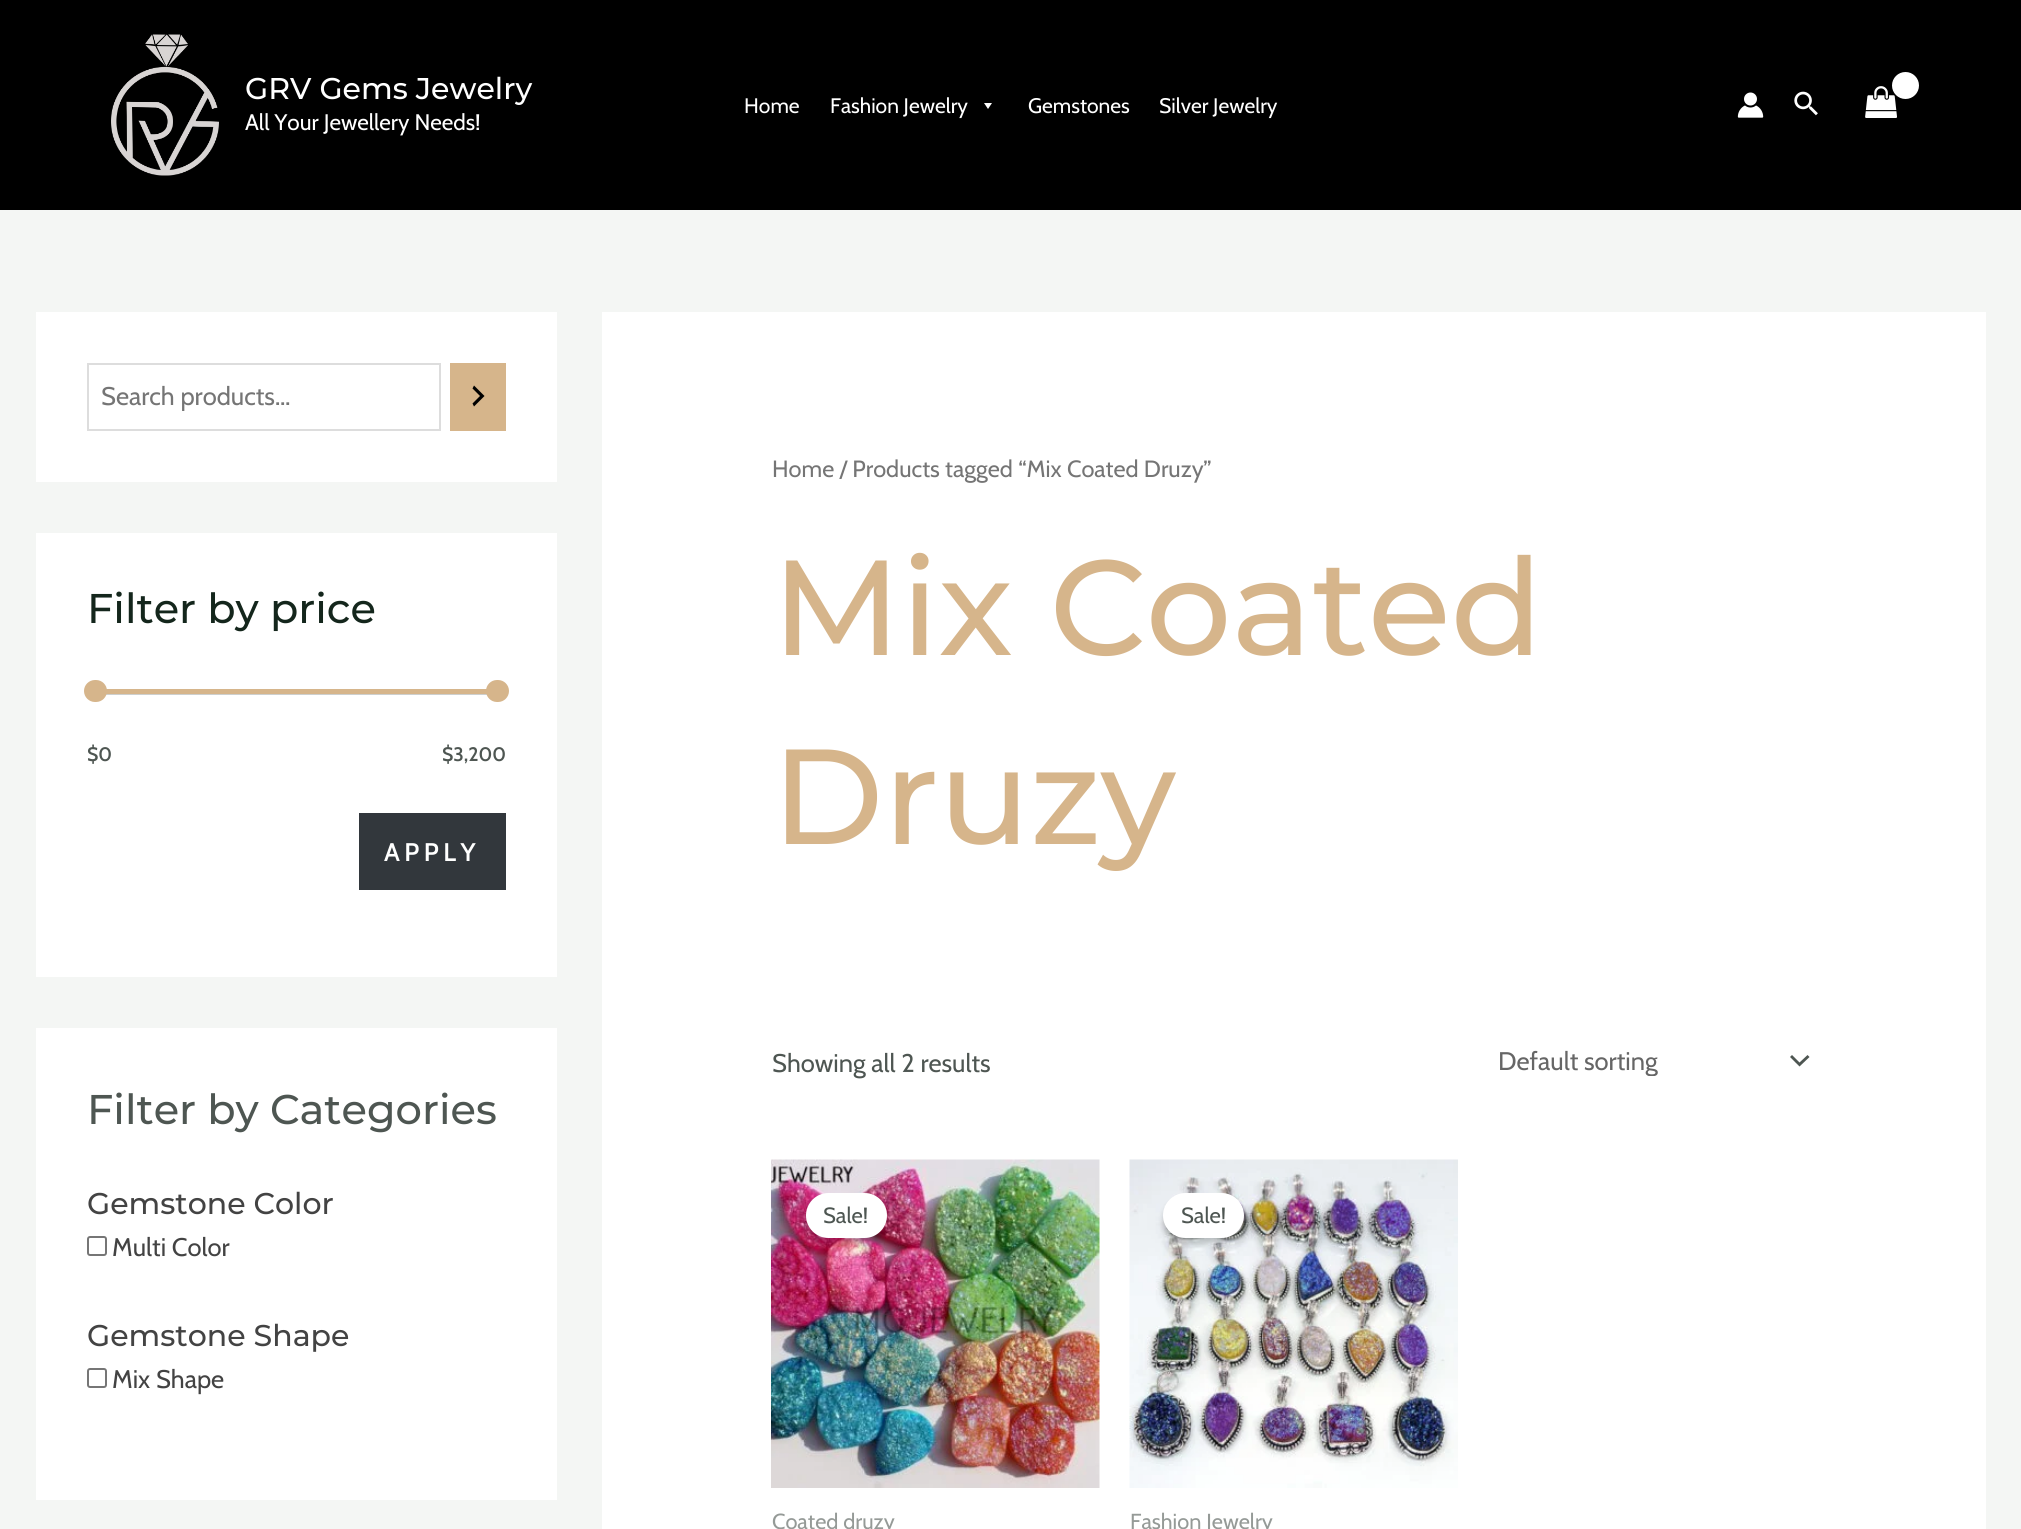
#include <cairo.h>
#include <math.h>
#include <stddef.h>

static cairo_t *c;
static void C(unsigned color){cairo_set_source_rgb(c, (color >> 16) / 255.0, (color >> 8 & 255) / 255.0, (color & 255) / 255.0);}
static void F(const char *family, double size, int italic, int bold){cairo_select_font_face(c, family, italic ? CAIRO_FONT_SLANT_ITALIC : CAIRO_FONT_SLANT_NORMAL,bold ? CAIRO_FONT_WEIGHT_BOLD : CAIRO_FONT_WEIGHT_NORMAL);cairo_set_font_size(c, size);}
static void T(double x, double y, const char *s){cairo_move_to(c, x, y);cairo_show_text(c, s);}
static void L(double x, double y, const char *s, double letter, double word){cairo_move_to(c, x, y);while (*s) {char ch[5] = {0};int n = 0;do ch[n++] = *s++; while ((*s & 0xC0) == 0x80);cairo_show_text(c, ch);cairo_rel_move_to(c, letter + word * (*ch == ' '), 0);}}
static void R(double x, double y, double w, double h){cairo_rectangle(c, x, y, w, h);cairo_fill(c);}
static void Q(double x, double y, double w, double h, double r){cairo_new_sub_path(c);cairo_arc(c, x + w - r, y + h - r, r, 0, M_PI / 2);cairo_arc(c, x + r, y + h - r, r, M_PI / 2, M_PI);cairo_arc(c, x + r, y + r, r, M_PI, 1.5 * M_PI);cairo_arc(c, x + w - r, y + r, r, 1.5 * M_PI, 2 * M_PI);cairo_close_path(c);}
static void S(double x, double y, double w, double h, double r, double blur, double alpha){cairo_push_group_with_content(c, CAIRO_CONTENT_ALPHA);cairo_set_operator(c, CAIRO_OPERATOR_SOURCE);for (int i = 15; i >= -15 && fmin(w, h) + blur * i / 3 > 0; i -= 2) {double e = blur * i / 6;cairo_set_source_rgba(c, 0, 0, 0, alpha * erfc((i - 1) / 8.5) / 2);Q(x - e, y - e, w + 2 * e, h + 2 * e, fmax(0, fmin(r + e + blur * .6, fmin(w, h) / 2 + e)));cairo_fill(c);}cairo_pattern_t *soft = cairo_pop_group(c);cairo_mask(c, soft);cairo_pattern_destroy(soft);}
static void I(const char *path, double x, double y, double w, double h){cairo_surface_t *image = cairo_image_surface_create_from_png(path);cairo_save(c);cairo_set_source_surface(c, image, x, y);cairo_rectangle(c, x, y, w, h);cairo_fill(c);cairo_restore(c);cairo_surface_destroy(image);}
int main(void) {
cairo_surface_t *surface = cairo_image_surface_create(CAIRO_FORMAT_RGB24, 2021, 1529);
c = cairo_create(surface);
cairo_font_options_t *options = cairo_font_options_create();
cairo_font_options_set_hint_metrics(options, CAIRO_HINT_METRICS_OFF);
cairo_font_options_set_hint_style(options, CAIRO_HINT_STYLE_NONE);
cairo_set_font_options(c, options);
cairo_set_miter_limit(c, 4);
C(0xf4f6f4);
cairo_paint(c);
C(0x000000);
R(0,0,2021,210);
I("1.png",111,34,108,142);
F("Montserrat Thin",30,0,0);
C(0xffffff);
T(245,99,"GRV Gems Jewelry");
F("Cabin",22.5,0,0);
T(245,130,"All Your Jewellery Needs!");
F("Cabin",21,0,0);
T(744,113,"Home");
T(830,113,"Fashion Jewelry");
cairo_new_path(c);
cairo_move_to(c,992,103);
cairo_line_to(c,988,109);
cairo_line_to(c,984,103);
cairo_close_path(c);
cairo_fill(c);
T(1028,113,"Gemstones");
T(1159,113,"Silver Jewelry");
I("2.png",1737,92,27,26);
I("3.png",1794,91,24,25);
I("4.png",1865,86,32,32);
C(0x000000);
S(1893,74,27,27,13.5,2,.3);
C(0xffffff);
cairo_arc(c,1905.5,85.5,13.5,0,2 * M_PI);
cairo_fill(c);
R(36,312,521,170);
cairo_rectangle(c,88,364,352,66);
C(0xdddddd);
cairo_stroke(c);
cairo_save(c);
cairo_rectangle(c,101,381,321,30);
cairo_clip(c);
F("Cabin",25.5,0,0);
C(0x757575);
T(101,405,"Search products…");
cairo_restore(c);
C(0xd6b58b);
R(450,363,56,68);
C(0x000000);
cairo_new_path(c);
cairo_move_to(c,472.5,403.5);
cairo_line_to(c,480,396);
cairo_line_to(c,472.5,388.5);
cairo_line_to(c,474,385.5);
cairo_line_to(c,484.5,396);
cairo_line_to(c,474,406.5);
cairo_close_path(c);
cairo_fill(c);
C(0xffffff);
R(36,533,521,444);
F("Montserrat Thin",41.5,0,0);
C(0x14261c);
T(87,623,"Filter by price");
C(0xcdcfce);
R(106,694,381,1);
C(0xd6b58b);
R(106,689,381,5);
Q(84,680,23,22,11);
cairo_fill(c);
Q(486,680,23,22,11);
cairo_fill(c);
F("Cabin SemiBold",19.5,0,0);
C(0x4e5652);
T(87,761,"$0");
T(442,761,"$3,200");
C(0x32373c);
R(359,813,147,77);
F("Cabin SemiBold",25.5,0,0);
C(0xffffff);
L(384,861,"APPLY",4.5,0);
R(36,1028,521,472);
F("Montserrat Thin",41.5,0,0);
C(0x4e5652);
T(87,1124,"Filter by Categories");
F("Montserrat Thin",30,0,0);
C(0x434343);
T(87,1214,"Gemstone Color");
Q(88,1237,18,18,2);
C(0x767676);
cairo_stroke(c);
F("Cabin",25.5,0,0);
C(0x434343);
T(112,1256,"Multi Color");
F("Montserrat Thin",30,0,0);
T(87,1346,"Gemstone Shape");
Q(88,1369,18,18,2);
C(0x767676);
cairo_stroke(c);
F("Cabin",25.5,0,0);
C(0x434343);
T(112,1388,"Mix Shape");
C(0xffffff);
R(602,312,1384,1217);
F("Cabin",23.5,0,0);
C(0x757575);
T(772,477,"Home / Products tagged “Mix Coated Druzy”");
F("Montserrat Thin",135,0,0);
C(0xd6b58b);
T(772,655,"Mix Coated");
T(772,844,"Druzy");
F("Cabin",25.5,0,0);
C(0x4e5652);
T(772,1072,"Showing all 2 results");
cairo_new_path(c);
cairo_move_to(c,1790,1057);
cairo_line_to(c,1799.5,1066.5);
cairo_line_to(c,1809.5,1057);
cairo_line_to(c,1807.5,1055);
cairo_line_to(c,1799.5,1062.5);
cairo_line_to(c,1792,1055);
cairo_close_path(c);
cairo_fill(c);
cairo_save(c);
cairo_rectangle(c,1499,1046,267,30);
cairo_clip(c);
C(0x666666);
T(1498,1070,"Default sorting");
cairo_restore(c);
I("5.png",771,1159,329,329);
C(0x000000);
S(806,1199,81,45,22.5,3,.15);
C(0xffffff);
Q(806,1193,81,45,22.5);
cairo_fill(c);
F("Cabin",22,0,0);
C(0x4e5652);
T(823,1223,"Sale!");
F("Cabin",21.75,0,0);
C(0x959a97);
T(772,1529,"Coated druzy");
I("6.png",1129,1159,329,329);
C(0x000000);
S(1163,1199,81,45,22.5,3,.15);
C(0xffffff);
Q(1163,1193,81,45,22.5);
cairo_fill(c);
F("Cabin",22,0,0);
C(0x4e5652);
T(1181,1223,"Sale!");
F("Cabin",21.75,0,0);
C(0x959a97);
T(1130,1529,"Fashion Jewelry");
cairo_surface_write_to_png(surface, "o.png");
cairo_font_options_destroy(options);
cairo_destroy(c);
cairo_surface_destroy(surface);
return 0;
}
